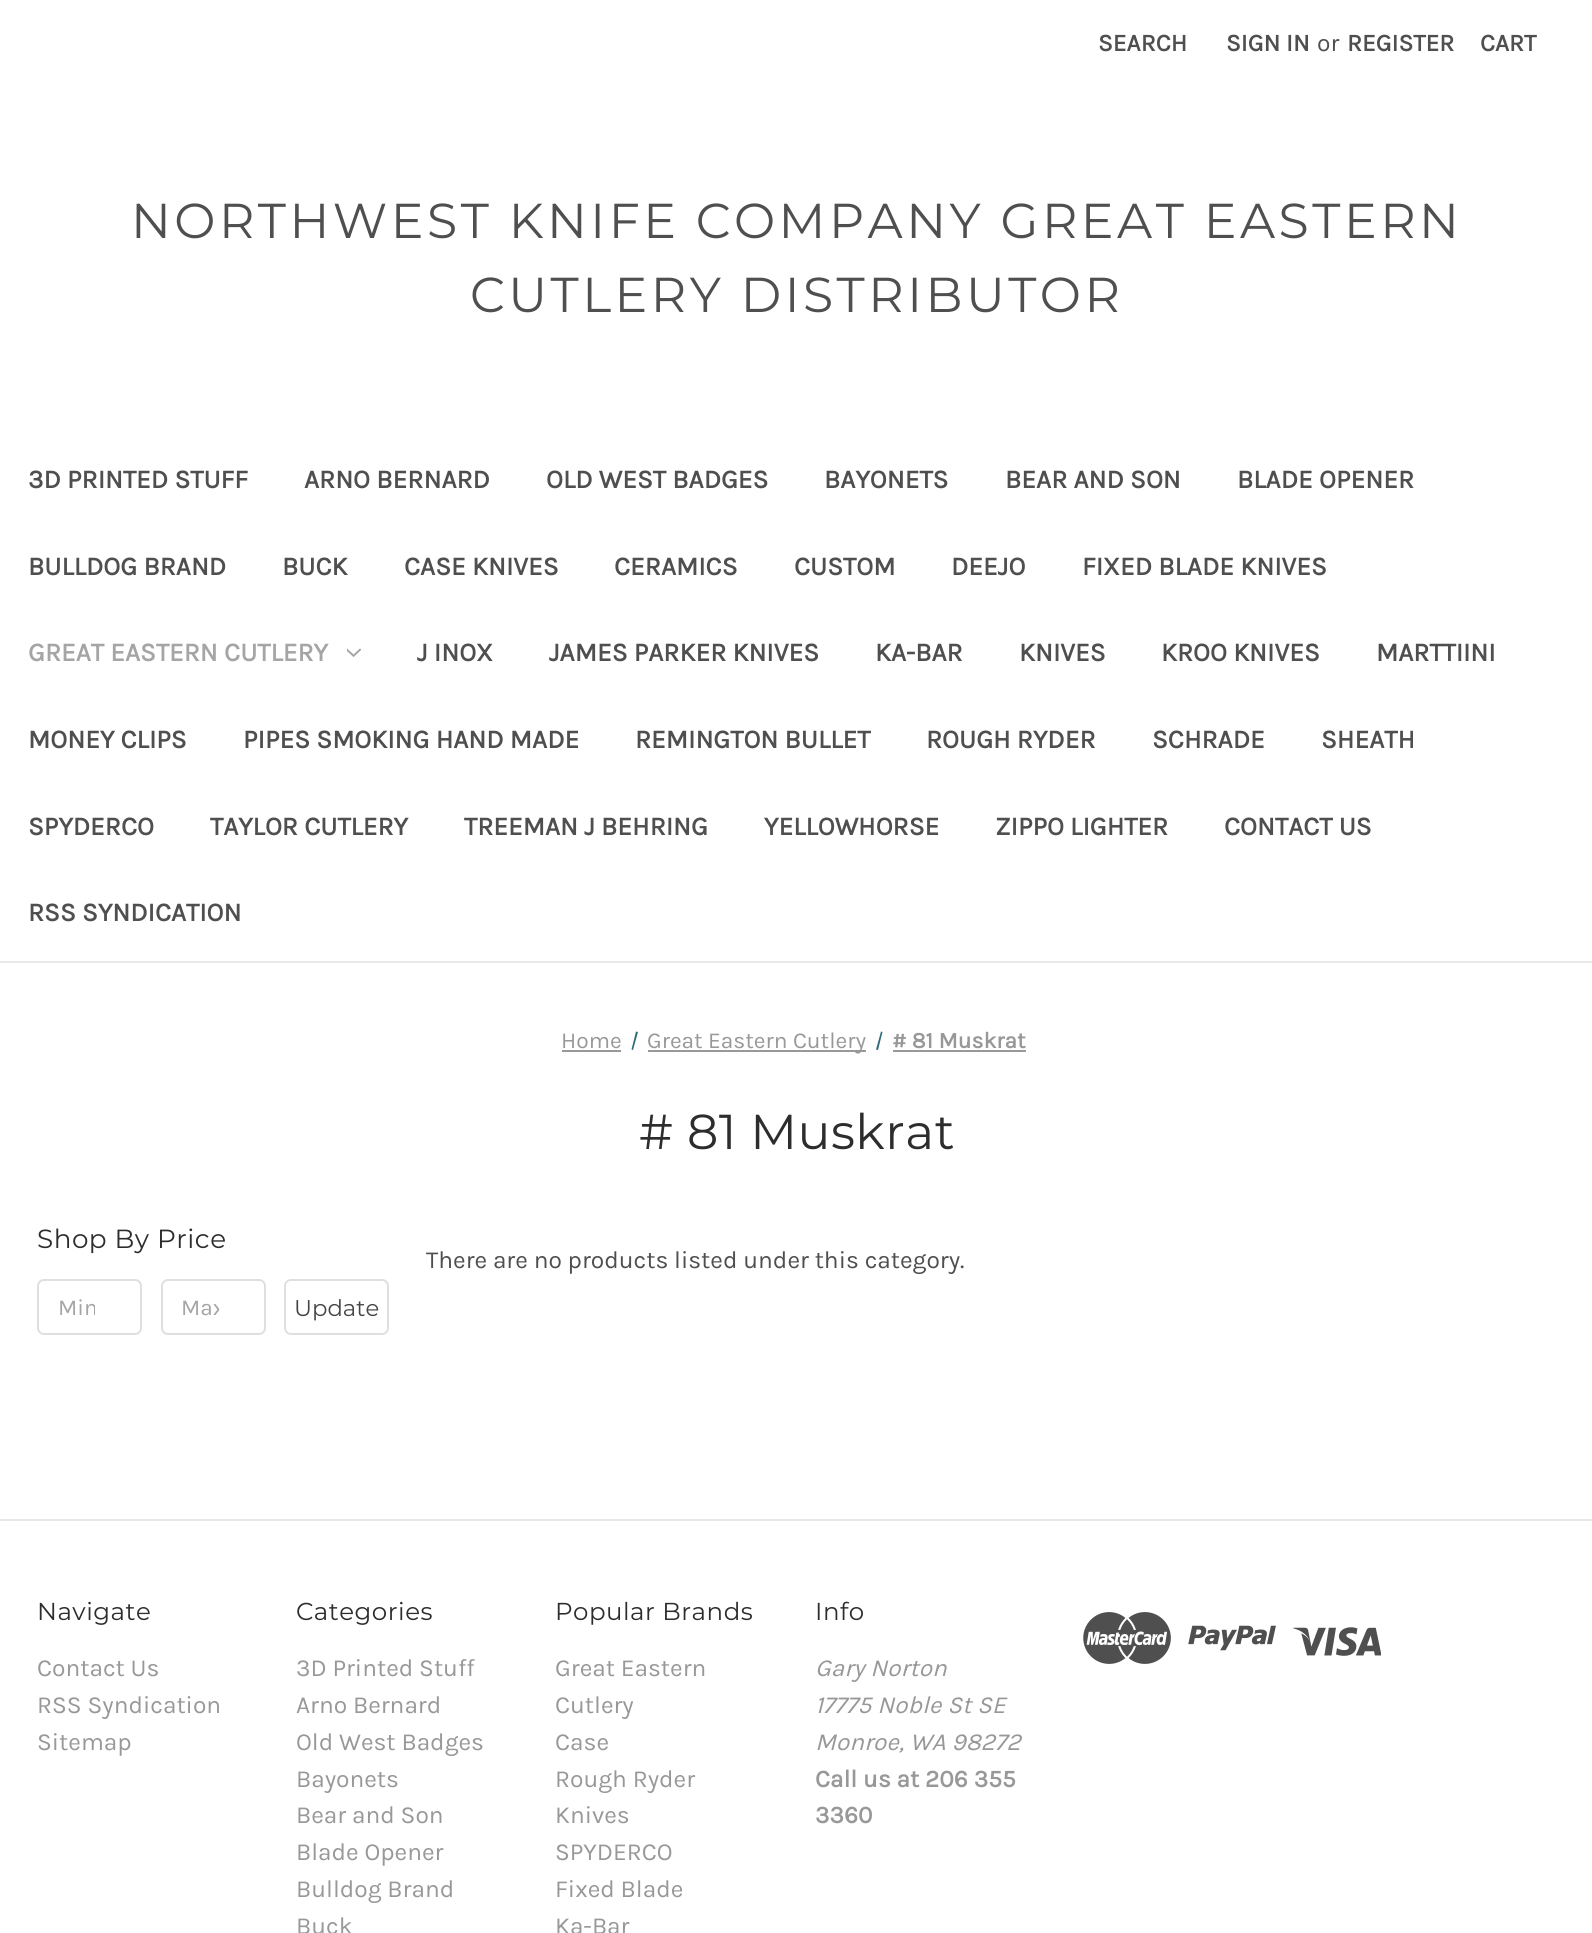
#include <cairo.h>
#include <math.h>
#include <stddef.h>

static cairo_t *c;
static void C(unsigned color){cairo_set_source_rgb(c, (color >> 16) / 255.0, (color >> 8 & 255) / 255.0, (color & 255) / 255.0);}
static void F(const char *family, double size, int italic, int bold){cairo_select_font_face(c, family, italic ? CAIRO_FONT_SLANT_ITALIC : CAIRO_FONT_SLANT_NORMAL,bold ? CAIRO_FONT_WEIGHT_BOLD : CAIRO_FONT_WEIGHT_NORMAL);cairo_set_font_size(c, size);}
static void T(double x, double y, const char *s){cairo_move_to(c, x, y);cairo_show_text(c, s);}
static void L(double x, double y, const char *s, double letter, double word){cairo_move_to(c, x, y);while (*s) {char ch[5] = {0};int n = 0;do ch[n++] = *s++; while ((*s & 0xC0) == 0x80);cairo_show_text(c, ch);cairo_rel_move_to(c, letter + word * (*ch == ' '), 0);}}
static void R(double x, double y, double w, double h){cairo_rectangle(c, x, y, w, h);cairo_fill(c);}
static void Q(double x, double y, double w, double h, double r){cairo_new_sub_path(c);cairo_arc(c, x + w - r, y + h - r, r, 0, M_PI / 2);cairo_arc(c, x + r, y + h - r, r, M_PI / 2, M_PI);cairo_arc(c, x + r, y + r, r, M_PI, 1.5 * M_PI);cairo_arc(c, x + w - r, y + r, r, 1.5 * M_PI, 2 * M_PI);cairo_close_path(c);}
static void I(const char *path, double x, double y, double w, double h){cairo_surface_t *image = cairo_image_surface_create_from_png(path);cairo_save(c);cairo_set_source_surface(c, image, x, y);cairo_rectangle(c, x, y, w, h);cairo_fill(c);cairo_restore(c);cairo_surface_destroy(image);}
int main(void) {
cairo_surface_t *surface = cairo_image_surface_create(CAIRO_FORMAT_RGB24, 1592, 1933);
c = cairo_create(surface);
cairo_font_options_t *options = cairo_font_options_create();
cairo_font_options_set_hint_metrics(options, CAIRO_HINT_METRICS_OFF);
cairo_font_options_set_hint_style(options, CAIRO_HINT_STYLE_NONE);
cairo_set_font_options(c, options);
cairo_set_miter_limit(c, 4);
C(0xffffff);
cairo_paint(c);
C(0xe8e8e8);
R(0,961,1592,2);
F("Karla",24.5,0,1);
C(0x4f4f4f);
T(1098,51,"SEARCH");
T(1226,51,"SIGN IN");
F("Karla",24.5,0,0);
T(1317,51,"or");
F("Karla",24.5,0,1);
T(1347,51,"REGISTER");
T(1480,51,"CART");
F("Montserrat Thin",49,0,0);
L(131,238,"NORTHWEST KNIFE COMPANY GREAT EASTERN",3.5,0);
L(470,312,"CUTLERY DISTRIBUTOR",3.5,0);
F("Karla",26.25,0,1);
T(28,488,"3D PRINTED STUFF");
T(304,488,"ARNO BERNARD");
T(546,488,"OLD WEST BADGES");
T(824,488,"BAYONETS");
T(1005,488,"BEAR AND SON");
T(1237,488,"BLADE OPENER");
T(28,575,"BULLDOG BRAND");
T(282,575,"BUCK");
T(404,575,"CASE KNIVES");
T(614,575,"CERAMICS");
T(794,575,"CUSTOM");
T(951,575,"DEEJO");
T(1082,575,"FIXED BLADE KNIVES");
C(0xa5a5a5);
T(28,661,"GREAT EASTERN CUTLERY");
I("1.png",347,648,14,9);
C(0x4f4f4f);
T(417,661,"J INOX");
T(549,661,"JAMES PARKER KNIVES");
T(875,661,"KA-BAR");
T(1019,661,"KNIVES");
T(1161,661,"KROO KNIVES");
T(1376,661,"MARTTIINI");
T(28,748,"MONEY CLIPS");
T(243,748,"PIPES SMOKING HAND MADE");
T(635,748,"REMINGTON BULLET");
T(926,748,"ROUGH RYDER");
T(1152,748,"SCHRADE");
T(1321,748,"SHEATH");
T(28,835,"SPYDERCO");
T(210,835,"TAYLOR CUTLERY");
T(464,835,"TREEMAN J BEHRING");
T(764,835,"YELLOWHORSE");
T(995,835,"ZIPPO LIGHTER");
T(1224,835,"CONTACT US");
T(28,921,"RSS SYNDICATION");
F("Karla",22.75,0,0);
C(0x989898);
T(561,1048,"Home");
R(562,1050,59,2);
C(0x2e6c77);
cairo_new_path(c);
cairo_move_to(c,636,1031.5);
cairo_line_to(c,638,1032);
cairo_line_to(c,633,1050);
cairo_line_to(c,631.5,1049.5);
cairo_close_path(c);
cairo_fill(c);
C(0x989898);
R(648,1050,218,2);
T(647,1048,"Great Eastern Cutlery");
C(0x2e6c77);
cairo_new_path(c);
cairo_move_to(c,881,1031.5);
cairo_line_to(c,882.5,1032);
cairo_line_to(c,878,1050);
cairo_line_to(c,876,1049.5);
cairo_close_path(c);
cairo_fill(c);
F("Karla",22.75,0,1);
C(0x989898);
T(892,1048,"# 81 Muskrat");
R(893,1050,133,2);
F("Montserrat Thin",49,0,0);
C(0x2d2d2d);
L(639,1149,"# 81 Muskrat",.5,0);
F("Montserrat Thin",26.25,0,0);
L(37,1248,"Shop By Price",.5,0);
Q(38,1280,103,54,6);
C(0xdfdfdf);
cairo_stroke(c);
cairo_save(c);
cairo_rectangle(c,58,1293,37,27);
cairo_clip(c);
F("Karla",22.75,0,0);
C(0xa5a5a5);
T(58,1315,"Min");
cairo_restore(c);
Q(162,1280,103,54,6);
cairo_stroke(c);
cairo_save(c);
cairo_rectangle(c,182,1293,37,27);
cairo_clip(c);
F("Karla",22.75,0,0);
C(0xa5a5a5);
T(181,1315,"Max");
cairo_restore(c);
Q(285,1280,103,54,6);
cairo_stroke(c);
F("Montserrat Thin",22.75,0,0);
C(0x454545);
T(294,1316,"Update");
F("Karla",24.5,0,0);
C(0x4f4f4f);
T(426,1268,"There are no products listed under this category.");
C(0xe8e8e8);
R(0,1519,1592,2);
F("Montserrat Thin",24.5,0,0);
C(0x2d2d2d);
L(37,1620,"Navigate",.5,0);
F("Karla",24.5,0,0);
C(0x989898);
T(37,1676,"Contact Us");
T(37,1713,"RSS Syndication");
T(37,1750,"Sitemap");
F("Montserrat Thin",24.5,0,0);
C(0x2d2d2d);
L(296,1620,"Categories",.5,0);
F("Karla",24.5,0,0);
C(0x989898);
T(296,1676,"3D Printed Stuff");
T(296,1713,"Arno Bernard");
T(296,1750,"Old West Badges");
T(296,1787,"Bayonets");
T(296,1823,"Bear and Son");
T(296,1860,"Blade Opener");
T(296,1897,"Bulldog Brand");
T(296,1934,"Buck");
F("Montserrat Thin",24.5,0,0);
C(0x2d2d2d);
L(555,1620,"Popular Brands",.5,0);
F("Karla",24.5,0,0);
C(0x989898);
T(555,1676,"Great Eastern");
T(555,1713,"Cutlery");
T(555,1750,"Case");
T(555,1787,"Rough Ryder");
T(555,1823,"Knives");
T(555,1860,"SPYDERCO");
T(555,1897,"Fixed Blade");
T(555,1934,"Ka-Bar");
F("Montserrat Thin",24.5,0,0);
C(0x2d2d2d);
L(815,1620,"Info",.5,0);
F("Karla",24.5,1,0);
C(0x989898);
T(815,1676,"Gary Norton");
T(815,1713,"17775 Noble St SE");
T(815,1750,"Monroe, WA 98272");
F("Karla",24.5,0,1);
T(815,1787,"Call us at 206 355");
T(815,1823,"3360");
I("2.png",1083,1612,88,52);
I("3.png",1188,1625,88,26);
I("4.png",1293,1627,88,29);
cairo_surface_write_to_png(surface, "o.png");
cairo_font_options_destroy(options);
cairo_destroy(c);
cairo_surface_destroy(surface);
return 0;
}
